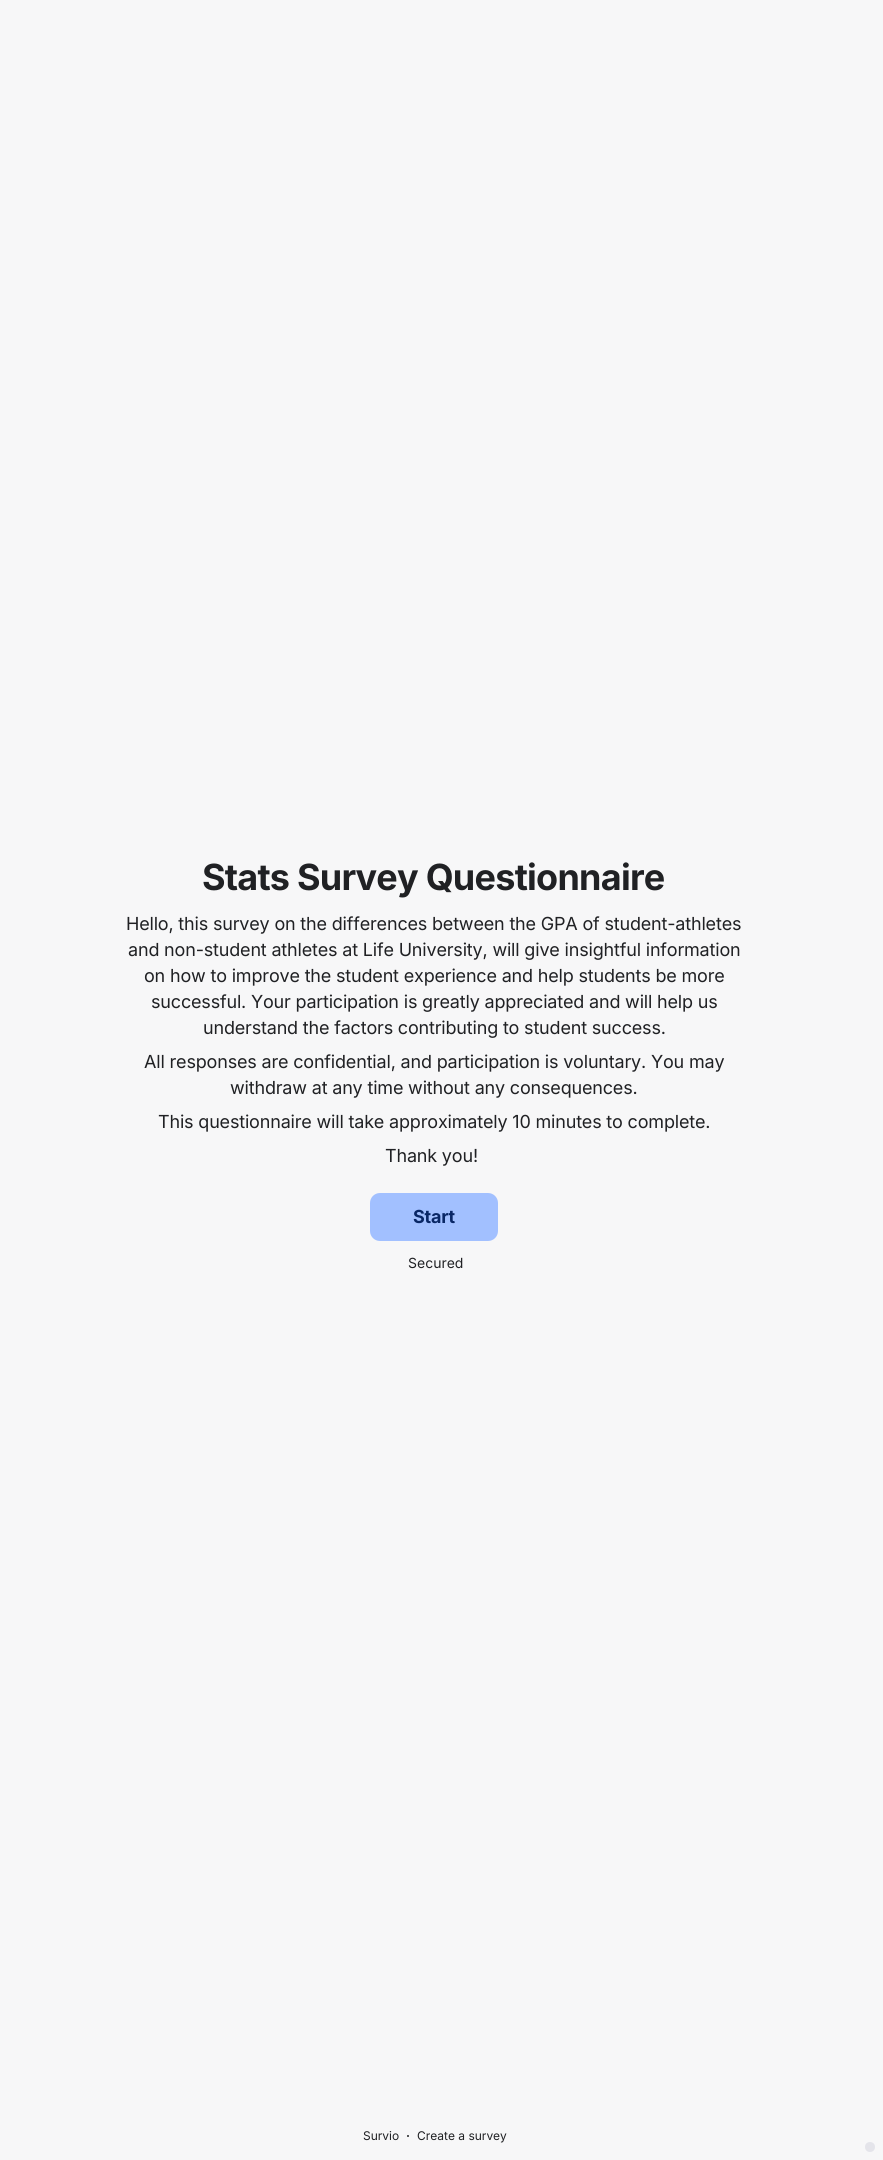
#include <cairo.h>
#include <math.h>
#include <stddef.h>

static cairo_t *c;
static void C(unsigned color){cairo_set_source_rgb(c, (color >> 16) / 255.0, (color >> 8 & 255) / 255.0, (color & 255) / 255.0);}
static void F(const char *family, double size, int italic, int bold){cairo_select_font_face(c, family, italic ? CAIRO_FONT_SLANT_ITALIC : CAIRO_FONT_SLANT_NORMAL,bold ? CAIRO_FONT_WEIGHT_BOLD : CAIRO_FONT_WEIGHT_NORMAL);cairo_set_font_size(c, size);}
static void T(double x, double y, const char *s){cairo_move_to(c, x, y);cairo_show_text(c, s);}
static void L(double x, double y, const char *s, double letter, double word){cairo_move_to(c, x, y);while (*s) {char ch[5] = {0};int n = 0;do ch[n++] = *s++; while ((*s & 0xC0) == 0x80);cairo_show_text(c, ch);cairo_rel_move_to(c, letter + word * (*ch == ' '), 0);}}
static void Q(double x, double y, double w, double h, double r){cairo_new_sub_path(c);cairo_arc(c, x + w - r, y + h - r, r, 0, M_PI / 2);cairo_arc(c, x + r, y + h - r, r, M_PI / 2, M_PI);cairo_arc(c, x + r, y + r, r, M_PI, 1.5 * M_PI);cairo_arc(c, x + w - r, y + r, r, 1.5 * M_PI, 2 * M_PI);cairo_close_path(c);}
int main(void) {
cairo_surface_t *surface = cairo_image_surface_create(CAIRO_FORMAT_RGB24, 883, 2160);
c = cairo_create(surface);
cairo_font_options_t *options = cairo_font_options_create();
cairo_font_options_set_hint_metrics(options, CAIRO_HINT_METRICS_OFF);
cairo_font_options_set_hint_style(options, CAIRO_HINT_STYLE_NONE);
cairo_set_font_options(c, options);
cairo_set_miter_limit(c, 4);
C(0xf7f7f8);
cairo_paint(c);
F("Inter",36,0,1);
C(0x202124);
L(202,890,"Stats Survey Questionnaire",-.75,0);
F("Inter",18,0,0);
L(126,930,"Hello, this survey on the differences between the GPA of student-athletes",-.18,0);
L(128,956,"and non-student athletes at Life University, will give insightful information",-.18,0);
L(144,982,"on how to improve the student experience and help students be more",-.18,0);
L(151,1008,"successful. Your participation is greatly appreciated and will help us",-.18,0);
L(203,1034,"understand the factors contributing to student success.",-.18,0);
L(144,1068,"All responses are confidential, and participation is voluntary. You may",-.18,0);
L(230,1094,"withdraw at any time without any consequences.",-.18,0);
L(158,1128,"This questionnaire will take approximately 10 minutes to complete.",-.18,0);
L(385,1162,"Thank you!",-.18,0);
C(0xa2c0ff);
Q(370,1193,128,48,10);
cairo_fill(c);
F("Inter",18,0,1);
C(0x092766);
L(413,1223,"Start",-.18,0);
F("Inter",14,0,0);
C(0x202124);
T(408,1268,"Secured");
F("Inter",12,0,0);
T(363,2140,"Survio");
cairo_new_path(c);
cairo_arc(c,408,2136,1,0,2 * M_PI);
cairo_fill(c);
T(417,2140,"Create a survey");
C(0xe4e4ea);
cairo_new_path(c);
cairo_arc(c,870,2147,5,0,2 * M_PI);
cairo_fill(c);
cairo_surface_write_to_png(surface, "o.png");
cairo_font_options_destroy(options);
cairo_destroy(c);
cairo_surface_destroy(surface);
return 0;
}
